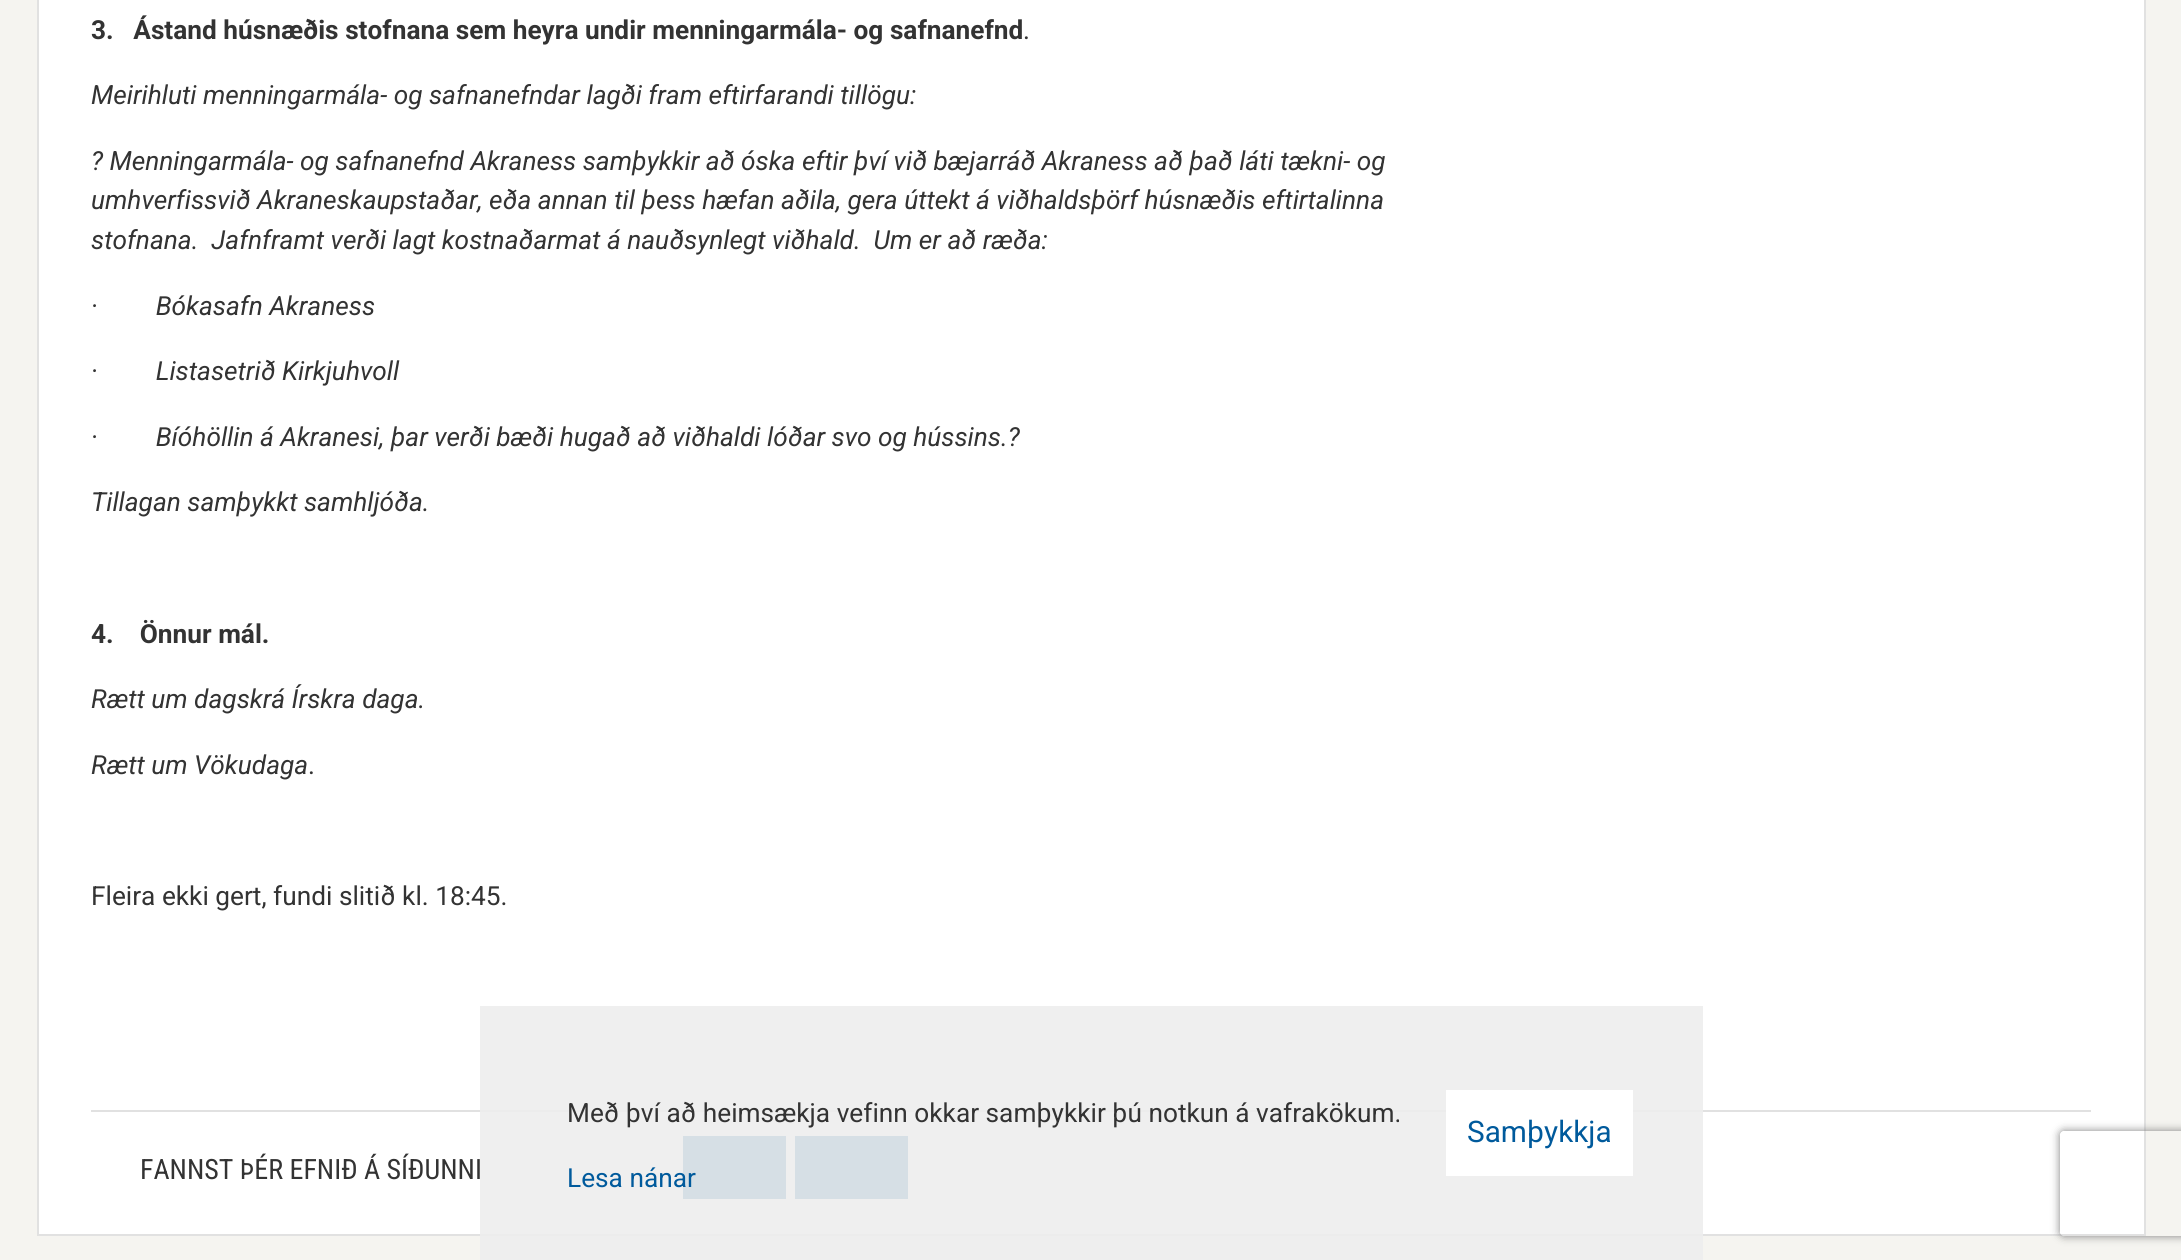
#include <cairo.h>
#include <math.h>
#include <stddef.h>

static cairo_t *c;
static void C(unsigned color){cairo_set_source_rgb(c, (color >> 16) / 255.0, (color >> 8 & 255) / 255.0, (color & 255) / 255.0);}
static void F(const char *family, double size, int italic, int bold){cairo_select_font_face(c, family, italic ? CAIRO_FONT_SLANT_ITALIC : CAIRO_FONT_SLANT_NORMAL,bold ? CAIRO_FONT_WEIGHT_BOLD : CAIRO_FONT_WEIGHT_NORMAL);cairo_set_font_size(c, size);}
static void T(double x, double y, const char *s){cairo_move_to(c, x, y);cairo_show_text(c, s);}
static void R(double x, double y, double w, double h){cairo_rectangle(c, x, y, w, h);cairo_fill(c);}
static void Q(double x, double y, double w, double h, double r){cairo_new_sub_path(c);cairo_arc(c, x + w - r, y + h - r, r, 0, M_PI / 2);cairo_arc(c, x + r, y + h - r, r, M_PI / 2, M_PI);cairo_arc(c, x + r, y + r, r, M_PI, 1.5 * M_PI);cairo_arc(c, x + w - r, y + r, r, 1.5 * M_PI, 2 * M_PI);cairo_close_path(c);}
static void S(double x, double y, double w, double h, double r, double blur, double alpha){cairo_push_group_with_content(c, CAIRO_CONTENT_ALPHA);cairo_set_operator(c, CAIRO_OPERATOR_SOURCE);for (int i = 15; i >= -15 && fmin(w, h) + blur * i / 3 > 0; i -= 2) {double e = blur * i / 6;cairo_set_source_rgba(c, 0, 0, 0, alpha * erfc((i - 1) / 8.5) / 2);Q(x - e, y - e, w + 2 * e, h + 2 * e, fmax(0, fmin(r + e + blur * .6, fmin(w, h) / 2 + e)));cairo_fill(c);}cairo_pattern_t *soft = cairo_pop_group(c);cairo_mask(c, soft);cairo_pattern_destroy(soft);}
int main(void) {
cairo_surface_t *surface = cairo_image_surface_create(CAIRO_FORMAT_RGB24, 2181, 1260);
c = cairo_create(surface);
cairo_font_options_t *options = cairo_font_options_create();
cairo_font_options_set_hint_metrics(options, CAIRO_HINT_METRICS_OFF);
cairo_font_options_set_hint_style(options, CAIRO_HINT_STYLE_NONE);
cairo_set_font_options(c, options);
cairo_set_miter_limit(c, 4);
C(0xf5f4f0);
cairo_paint(c);
C(0xffffff);
cairo_rectangle(c,38,-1,2107,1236);
cairo_fill_preserve(c);
C(0xe1e1e1);
cairo_stroke(c);
F("Roboto",26.25,0,1);
C(0x333333);
T(91,39,"3.   Ástand húsnæðis stofnana sem heyra undir menningarmála- og safnanefnd");
F("Roboto",26.25,0,0);
T(1023,39,".");
F("Roboto",26.25,1,0);
T(91,104,"Meirihluti menningarmála- og safnanefndar lagði fram eftirfarandi tillögu:");
T(91,170,"? Menningarmála- og safnanefnd Akraness samþykkir að óska eftir því við bæjarráð Akraness að það láti tækni- og");
T(91,209,"umhverfissvið Akraneskaupstaðar, eða annan til þess hæfan aðila, gera úttekt á viðhaldsþörf húsnæðis eftirtalinna");
T(91,249,"stofnana.  Jafnframt verði lagt kostnaðarmat á nauðsynlegt viðhald.  Um er að ræða:");
T(91,315,"·         Bókasafn Akraness");
T(91,380,"·         Listasetrið Kirkjuhvoll");
T(91,446,"·         Bíóhöllin á Akranesi, þar verði bæði hugað að viðhaldi lóðar svo og hússins.?");
T(91,511,"Tillagan samþykkt samhljóða.");
F("Roboto",26.25,0,1);
T(91,643,"4.    Önnur mál.");
F("Roboto",26.25,1,0);
T(91,708,"Rætt um dagskrá Írskra daga.");
T(91,774,"Rætt um Vökudaga");
F("Roboto",26.25,0,0);
T(308,774,".");
T(91,905,"Fleira ekki gert, fundi slitið kl. 18:45.");
C(0xe1e1e1);
R(91,1110,2000,2);
F("Roboto Condensed",28,0,0);
C(0x333333);
T(140,1179,"FANNST ÞÉR EFNIÐ Á SÍÐUNNI");
C(0x005a9c);
R(683,1136,103,63);
R(795,1136,113,63);
cairo_set_source_rgba(c,0.933,0.933,0.933,0.9);
R(480,1006,1223,254);
F("Roboto",26.25,0,0);
C(0x333333);
T(567,1122,"Með því að heimsækja vefinn okkar samþykkir þú notkun á vafrakökum.");
C(0x005a9c);
T(567,1187,"Lesa nánar");
C(0xffffff);
R(1446,1090,187,86);
F("Roboto",29.75,0,0);
C(0x005a9c);
T(1467,1142,"Samþykkja");
cairo_save(c);
cairo_set_fill_rule(c,CAIRO_FILL_RULE_EVEN_ODD);
cairo_new_path(c);
cairo_move_to(c,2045,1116);
cairo_line_to(c,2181,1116);
cairo_line_to(c,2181,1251);
cairo_line_to(c,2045,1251);
cairo_close_path(c);
cairo_move_to(c,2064,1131);
cairo_line_to(c,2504,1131);
cairo_curve_to(c,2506,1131,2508,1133,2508,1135);
cairo_line_to(c,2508,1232);
cairo_curve_to(c,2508,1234,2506,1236,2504,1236);
cairo_line_to(c,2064,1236);
cairo_curve_to(c,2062,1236,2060,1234,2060,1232);
cairo_line_to(c,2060,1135);
cairo_curve_to(c,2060,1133,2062,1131,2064,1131);
cairo_close_path(c);
cairo_clip(c);
C(0x808080);
S(2060,1131,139,105,4,4.5,1);
cairo_restore(c);
cairo_surface_write_to_png(surface, "o.png");
cairo_font_options_destroy(options);
cairo_destroy(c);
cairo_surface_destroy(surface);
return 0;
}
